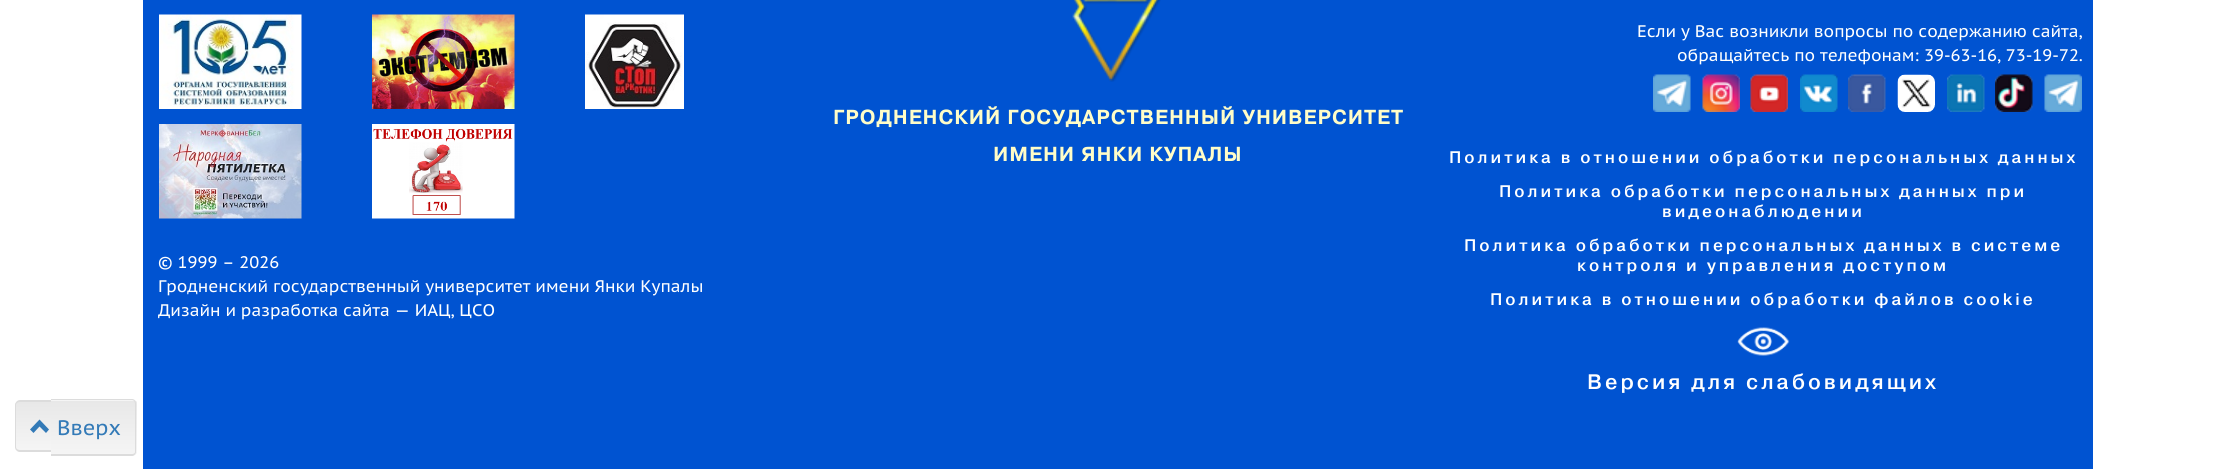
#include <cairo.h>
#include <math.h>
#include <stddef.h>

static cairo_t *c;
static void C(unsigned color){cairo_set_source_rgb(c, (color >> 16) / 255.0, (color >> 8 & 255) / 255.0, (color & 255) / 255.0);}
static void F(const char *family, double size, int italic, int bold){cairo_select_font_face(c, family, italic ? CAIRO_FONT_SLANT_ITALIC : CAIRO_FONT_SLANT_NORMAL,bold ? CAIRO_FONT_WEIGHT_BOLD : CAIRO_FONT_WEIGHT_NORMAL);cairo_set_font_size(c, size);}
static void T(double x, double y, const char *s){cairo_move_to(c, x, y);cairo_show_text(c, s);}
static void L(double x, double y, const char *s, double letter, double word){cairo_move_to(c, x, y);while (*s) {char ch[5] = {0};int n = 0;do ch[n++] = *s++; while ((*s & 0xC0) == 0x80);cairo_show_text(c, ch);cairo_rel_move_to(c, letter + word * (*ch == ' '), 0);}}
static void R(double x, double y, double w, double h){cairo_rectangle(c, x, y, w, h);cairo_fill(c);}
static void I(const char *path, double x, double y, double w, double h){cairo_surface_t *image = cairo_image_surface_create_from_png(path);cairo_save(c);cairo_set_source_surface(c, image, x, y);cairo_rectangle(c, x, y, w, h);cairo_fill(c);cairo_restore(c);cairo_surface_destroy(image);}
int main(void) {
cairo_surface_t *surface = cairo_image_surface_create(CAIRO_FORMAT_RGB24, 2235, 469);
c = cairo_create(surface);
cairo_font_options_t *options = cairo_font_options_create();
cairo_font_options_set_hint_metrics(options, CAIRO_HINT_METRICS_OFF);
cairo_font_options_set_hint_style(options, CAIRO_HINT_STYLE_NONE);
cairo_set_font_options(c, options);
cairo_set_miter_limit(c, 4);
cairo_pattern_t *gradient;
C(0xffffff);
cairo_paint(c);
C(0x0053d1);
R(143,0,1950,469);
I("1.png",1072,0,89,82);
F("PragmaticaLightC",19.5,0,1);
C(0xfffdc8);
L(833,124,"ГРОДНЕНСКИЙ ГОСУДАРСТВЕННЫЙ УНИВЕРСИТЕТ",1.5,0);
L(993,161,"ИМЕНИ ЯНКИ КУПАЛЫ",1.5,0);
F("PT Sans Caption",16.8,0,0);
C(0xffffff);
T(1637,37,"Если у Вас возникли вопросы по содержанию сайта,");
T(1677,61,"обращайтесь по телефонам: 39-63-16, 73-19-72.");
I("2.png",1653,74,38,38);
I("3.png",1702,74,38,38);
I("4.png",1750,74,38,38);
I("5.png",1800,74,38,38);
I("6.png",1848,74,38,38);
I("7.png",1897,74,38,38);
I("8.png",1947,74,38,38);
I("9.png",1995,74,38,38);
I("10.png",2044,74,38,38);
F("PragmaticaLightC Light",16.8,0,0);
L(1449,163,"Политика в отношении обработки персональных данных",3,0);
L(1499,197,"Политика обработки персональных данных при",3,0);
L(1662,217,"видеонаблюдении",3,0);
L(1464,251,"Политика обработки персональных данных в системе",3,0);
L(1577,271,"контроля и управления доступом",3,0);
L(1490,305,"Политика в отношении обработки файлов cookie",3,0);
I("11.png",1737,327,53,29);
F("PragmaticaLightC Light",21,0,0);
L(1587,389,"Версия для слабовидящих",3,0);
I("12.png",159,14,143,95);
I("13.png",372,14,143,95);
I("14.png",585,14,99,95);
I("15.png",159,124,143,95);
I("16.png",372,124,143,95);
F("PT Sans Caption",16.8,0,0);
T(158,268,"© 1999 – 2026");
T(158,292,"Гродненский государственный университет имени Янки Купалы");
T(158,316,"Дизайн и разработка сайта — ИАЦ, ЦСО");
C(0xf5f5f5);
cairo_new_path(c);
cairo_move_to(c,20,401);
cairo_line_to(c,51,401);
cairo_line_to(c,51,452);
cairo_line_to(c,20,452);
cairo_curve_to(c,17,452,15,450,15,447);
cairo_line_to(c,15,406);
cairo_curve_to(c,15,403,17,401,20,401);
cairo_close_path(c);
cairo_fill(c);
cairo_save(c);
cairo_new_path(c);
cairo_move_to(c,20,401);
cairo_line_to(c,51,401);
cairo_line_to(c,51,452);
cairo_line_to(c,20,452);
cairo_curve_to(c,17,452,15,450,15,447);
cairo_line_to(c,15,406);
cairo_curve_to(c,15,403,17,401,20,401);
cairo_close_path(c);
cairo_clip(c);
gradient = cairo_pattern_create_linear(34,402,34,450);
cairo_pattern_add_color_stop_rgba(gradient,0,0.91,0.91,0.91,1);
cairo_pattern_add_color_stop_rgba(gradient,1,0.961,0.961,0.961,1);
cairo_set_source(c,gradient);
cairo_pattern_destroy(gradient);
R(15,402,36,48);
cairo_restore(c);
C(0xdcdcdc);
cairo_set_fill_rule(c,CAIRO_FILL_RULE_EVEN_ODD);
cairo_new_path(c);
cairo_move_to(c,20,400);
cairo_line_to(c,51,400);
cairo_line_to(c,51,452);
cairo_line_to(c,20,452);
cairo_curve_to(c,17,452,15,449,15,447);
cairo_line_to(c,15,405);
cairo_curve_to(c,15,403,17,400,20,400);
cairo_close_path(c);
cairo_move_to(c,20,402);
cairo_line_to(c,51,402);
cairo_line_to(c,51,450);
cairo_line_to(c,20,450);
cairo_curve_to(c,18,450,16,449,16,447);
cairo_line_to(c,16,405);
cairo_curve_to(c,16,403,18,402,20,402);
cairo_close_path(c);
cairo_fill(c);
C(0xf5f5f5);
cairo_new_path(c);
cairo_move_to(c,51,399);
cairo_line_to(c,132,399);
cairo_curve_to(c,135,399,137,401,137,404);
cairo_line_to(c,137,451);
cairo_curve_to(c,137,454,135,456,132,456);
cairo_line_to(c,51,456);
cairo_close_path(c);
cairo_fill(c);
cairo_save(c);
cairo_set_fill_rule(c,CAIRO_FILL_RULE_WINDING);
cairo_new_path(c);
cairo_move_to(c,51,399);
cairo_line_to(c,132,399);
cairo_curve_to(c,135,399,137,401,137,404);
cairo_line_to(c,137,451);
cairo_curve_to(c,137,454,135,456,132,456);
cairo_line_to(c,51,456);
cairo_close_path(c);
cairo_clip(c);
gradient = cairo_pattern_create_linear(93,401,93,455);
cairo_pattern_add_color_stop_rgba(gradient,0,0.91,0.91,0.91,1);
cairo_pattern_add_color_stop_rgba(gradient,1,0.961,0.961,0.961,1);
cairo_set_source(c,gradient);
cairo_pattern_destroy(gradient);
R(51,401,86,54);
cairo_restore(c);
C(0xdcdcdc);
cairo_new_path(c);
cairo_move_to(c,51,399);
cairo_line_to(c,132,399);
cairo_curve_to(c,134,399,136,401,136,404);
cairo_line_to(c,136,452);
cairo_curve_to(c,136,454,134,456,132,456);
cairo_line_to(c,51,456);
cairo_close_path(c);
cairo_move_to(c,51,400);
cairo_line_to(c,132,400);
cairo_curve_to(c,134,400,135,402,135,404);
cairo_line_to(c,135,452);
cairo_curve_to(c,135,453,134,454,132,454);
cairo_line_to(c,51,454);
cairo_close_path(c);
cairo_fill(c);
C(0x337ab7);
cairo_set_fill_rule(c,CAIRO_FILL_RULE_WINDING);
cairo_new_path(c);
cairo_move_to(c,49,429.5);
cairo_line_to(c,46,433);
cairo_line_to(c,39.5,426.5);
cairo_line_to(c,33.5,433);
cairo_line_to(c,30,429.5);
cairo_line_to(c,39.5,419.5);
cairo_close_path(c);
cairo_fill(c);
F("PT Sans Caption",21,0,0);
T(57,435,"Вверх");
cairo_surface_write_to_png(surface, "o.png");
cairo_font_options_destroy(options);
cairo_destroy(c);
cairo_surface_destroy(surface);
return 0;
}
